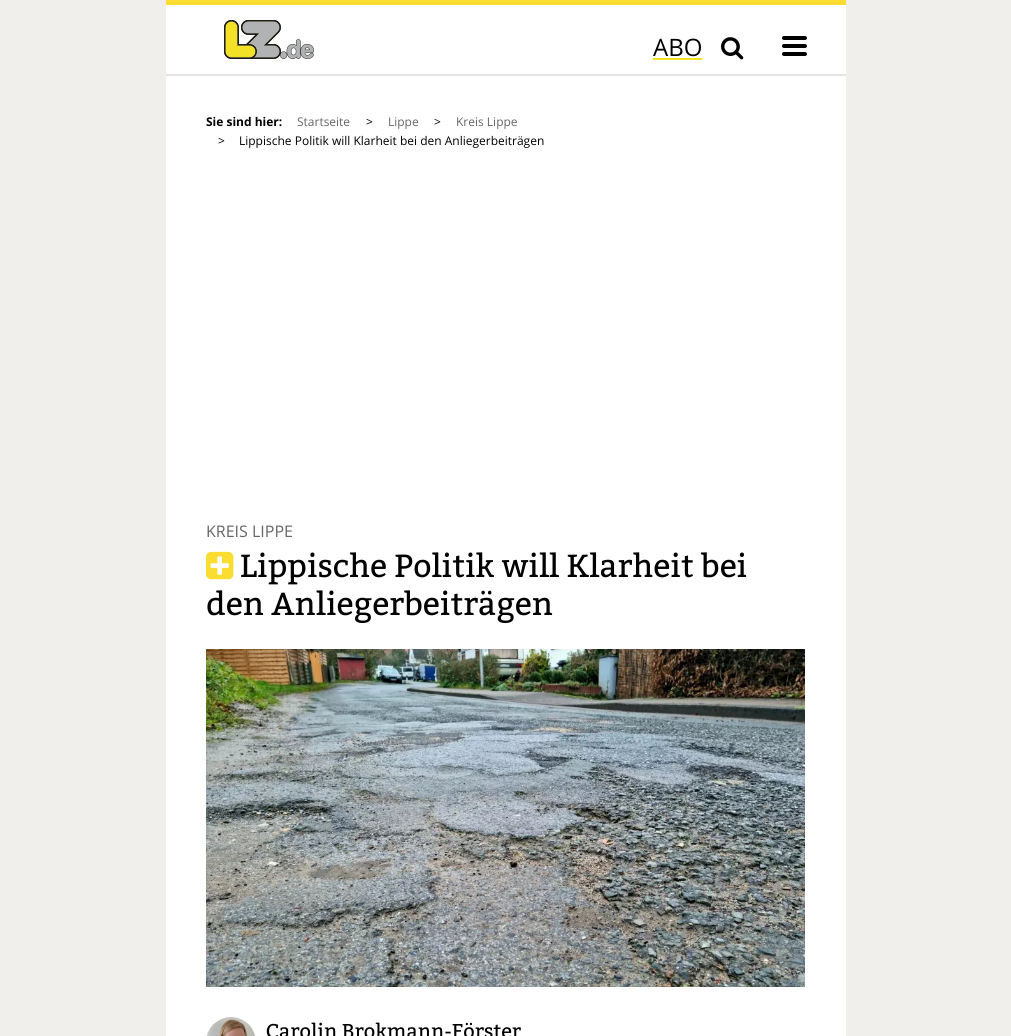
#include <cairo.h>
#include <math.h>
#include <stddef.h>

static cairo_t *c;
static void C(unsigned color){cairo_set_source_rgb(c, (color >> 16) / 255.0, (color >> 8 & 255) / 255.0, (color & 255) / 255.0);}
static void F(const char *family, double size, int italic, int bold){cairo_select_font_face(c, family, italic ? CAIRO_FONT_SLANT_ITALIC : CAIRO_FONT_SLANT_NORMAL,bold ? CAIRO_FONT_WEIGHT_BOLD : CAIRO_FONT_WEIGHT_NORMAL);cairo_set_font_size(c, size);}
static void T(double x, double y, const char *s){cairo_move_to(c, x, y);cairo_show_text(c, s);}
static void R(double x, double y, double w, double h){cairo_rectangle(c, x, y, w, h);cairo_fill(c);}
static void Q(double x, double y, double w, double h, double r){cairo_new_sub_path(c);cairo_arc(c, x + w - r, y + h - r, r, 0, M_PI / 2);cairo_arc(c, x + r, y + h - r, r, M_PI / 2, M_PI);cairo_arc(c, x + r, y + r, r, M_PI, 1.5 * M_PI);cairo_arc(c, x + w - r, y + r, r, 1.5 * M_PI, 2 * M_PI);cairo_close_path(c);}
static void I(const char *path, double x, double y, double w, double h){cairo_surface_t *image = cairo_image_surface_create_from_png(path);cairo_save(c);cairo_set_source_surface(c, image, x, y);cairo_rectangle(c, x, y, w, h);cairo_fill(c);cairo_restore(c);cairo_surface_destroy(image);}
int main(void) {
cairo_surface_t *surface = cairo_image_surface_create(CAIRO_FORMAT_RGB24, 1011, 1036);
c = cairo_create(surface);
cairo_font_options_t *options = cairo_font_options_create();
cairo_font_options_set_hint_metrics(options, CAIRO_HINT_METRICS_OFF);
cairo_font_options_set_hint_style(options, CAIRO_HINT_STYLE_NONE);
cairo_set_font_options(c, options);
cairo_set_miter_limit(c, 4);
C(0xf1efeb);
cairo_paint(c);
C(0xffffff);
R(166,5,680,1031);
C(0xfbdd32);
R(166,0,680,5);
C(0xe3e3e3);
R(166,74,680,2);
I("1.png",224,20,90,39);
F("Open Sans",24,0,0);
C(0x000000);
T(653,56,"ABO");
C(0xf3e126);
R(653,58,49,2);
I("2.png",721,37,23,23);
C(0x000000);
Q(782,36,25,4,2);
cairo_fill(c);
Q(782,44,25,4,2);
cairo_fill(c);
Q(782,52,25,4,2);
cairo_fill(c);
F("Open Sans",12,0,1);
T(206,126,"Sie sind hier:");
F("Open Sans",12,0,0);
C(0x666666);
T(297,126,"Startseite");
C(0x000000);
T(366,126,">");
C(0x666666);
T(388,126,"Lippe");
C(0x000000);
T(434,126,">");
C(0x666666);
T(456,126,"Kreis Lippe");
C(0x000000);
T(218,145,">");
T(239,145,"Lippische Politik will Klarheit bei den Anliegerbeiträgen");
F("Open Sans",16,0,0);
C(0x666666);
T(206,537,"KREIS LIPPE");
I("3.png",206,551,28,29);
F("Bitter",32,0,0);
C(0x000000);
T(240,577,"Lippische Politik will Klarheit bei");
T(206,615,"den Anliegerbeiträgen");
I("4.png",206,649,599,338);
I("5.png",207,1017,48,19);
F("Bitter",20,0,0);
T(266,1038,"Carolin Brokmann-Förster");
cairo_surface_write_to_png(surface, "o.png");
cairo_font_options_destroy(options);
cairo_destroy(c);
cairo_surface_destroy(surface);
return 0;
}
